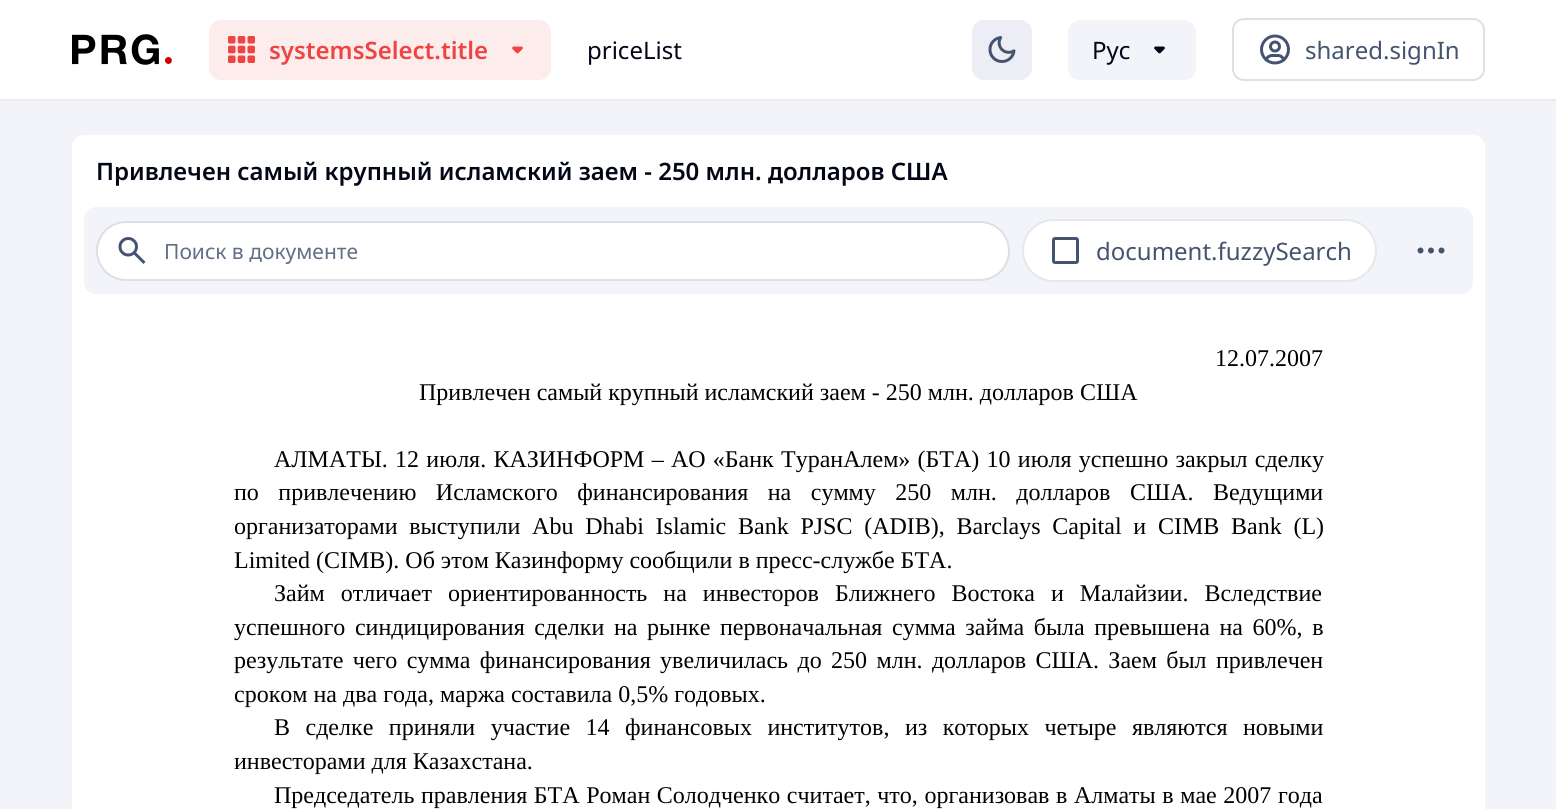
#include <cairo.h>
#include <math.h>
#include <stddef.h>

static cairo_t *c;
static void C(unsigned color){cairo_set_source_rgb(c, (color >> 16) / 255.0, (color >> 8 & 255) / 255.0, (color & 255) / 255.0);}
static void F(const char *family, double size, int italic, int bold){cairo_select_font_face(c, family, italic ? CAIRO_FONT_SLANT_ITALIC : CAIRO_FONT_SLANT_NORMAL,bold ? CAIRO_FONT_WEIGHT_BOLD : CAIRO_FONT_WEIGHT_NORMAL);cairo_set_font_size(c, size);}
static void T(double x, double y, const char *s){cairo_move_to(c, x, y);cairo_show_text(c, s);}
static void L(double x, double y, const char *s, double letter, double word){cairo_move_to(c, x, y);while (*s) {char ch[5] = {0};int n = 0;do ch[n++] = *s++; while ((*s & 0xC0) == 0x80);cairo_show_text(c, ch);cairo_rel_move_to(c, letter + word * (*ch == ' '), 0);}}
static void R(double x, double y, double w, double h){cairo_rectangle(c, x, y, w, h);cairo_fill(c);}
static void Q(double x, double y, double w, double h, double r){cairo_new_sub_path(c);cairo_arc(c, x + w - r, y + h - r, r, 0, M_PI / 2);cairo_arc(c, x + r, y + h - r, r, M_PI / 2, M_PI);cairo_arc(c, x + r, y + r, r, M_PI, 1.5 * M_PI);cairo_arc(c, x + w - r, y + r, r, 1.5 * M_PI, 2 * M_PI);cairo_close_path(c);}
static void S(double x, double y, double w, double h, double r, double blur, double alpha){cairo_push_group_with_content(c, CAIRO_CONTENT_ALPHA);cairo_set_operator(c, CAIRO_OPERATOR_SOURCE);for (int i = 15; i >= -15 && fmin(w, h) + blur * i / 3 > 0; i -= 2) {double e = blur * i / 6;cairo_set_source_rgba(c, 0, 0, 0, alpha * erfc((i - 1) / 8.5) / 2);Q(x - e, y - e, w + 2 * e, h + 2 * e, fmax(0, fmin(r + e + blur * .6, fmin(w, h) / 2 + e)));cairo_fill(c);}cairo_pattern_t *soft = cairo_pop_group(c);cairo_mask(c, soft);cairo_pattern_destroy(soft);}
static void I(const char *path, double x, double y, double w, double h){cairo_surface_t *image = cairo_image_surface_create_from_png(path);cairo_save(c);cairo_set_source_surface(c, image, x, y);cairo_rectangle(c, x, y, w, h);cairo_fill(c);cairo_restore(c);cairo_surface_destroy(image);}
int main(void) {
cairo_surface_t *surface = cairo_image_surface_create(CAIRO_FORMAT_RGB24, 1556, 809);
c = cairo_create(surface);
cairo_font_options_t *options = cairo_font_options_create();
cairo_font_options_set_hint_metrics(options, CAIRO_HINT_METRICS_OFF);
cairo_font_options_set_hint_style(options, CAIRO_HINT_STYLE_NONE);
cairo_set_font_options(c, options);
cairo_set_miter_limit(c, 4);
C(0xffffff);
cairo_paint(c);
C(0xf3f4f9);
R(0,99,1556,710);
cairo_save(c);
cairo_rectangle(c,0,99,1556,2);
cairo_clip(c);
C(0x000000);
S(0,2,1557,99,0,1.5,.05);
cairo_restore(c);
I("1.png",72,34,100,31);
C(0xfdecec);
Q(209,20,342,60,12);
cairo_fill(c);
I("2.png",228,36,27,27);
F("Noto Sans SemiBold",24,0,0);
C(0xef4444);
T(269,59,"systemsSelect.title");
I("3.png",512,46,11,8);
F("Noto Sans",24,0,0);
C(0x020617);
T(587,59,"priceList");
C(0xedeef5);
Q(972,20,60,60,12);
cairo_fill(c);
I("4.png",988,36,28,27);
C(0xf2f4f9);
Q(1068,20,128,60,12);
cairo_fill(c);
C(0x020617);
T(1092,59,"Рус");
I("5.png",1154,46,11,8);
Q(1233,19,251,61,11);
C(0xdcdfe5);
cairo_stroke(c);
I("6.png",1260,34,30,31);
C(0x44546f);
T(1305,59,"shared.signIn");
C(0xffffff);
cairo_new_path(c);
cairo_move_to(c,84,135);
cairo_line_to(c,1473,135);
cairo_curve_to(c,1479.5,135,1485,140.5,1485,147);
cairo_line_to(c,1485,207);
cairo_line_to(c,72,207);
cairo_line_to(c,72,147);
cairo_curve_to(c,72,140.5,77.5,135,84,135);
cairo_close_path(c);
cairo_fill(c);
F("Noto Sans SemiBold",24,0,0);
C(0x020617);
T(96,180,"Привлечен самый крупный исламский заем - 250 млн. долларов США");
C(0xffffff);
R(72,207,1413,602);
C(0xf3f4f9);
Q(84,207,1389,87,12);
cairo_fill(c);
C(0xffffff);
Q(97,222,912,58,29);
cairo_fill_preserve(c);
C(0xdcdfe5);
cairo_stroke(c);
I("7.png",118,237,28,27);
F("Noto Sans",21,0,0);
C(0x626f86);
T(164,259,"Поиск в документе");
C(0xffffff);
Q(1023,220,353,61,30.5);
cairo_fill_preserve(c);
C(0xe5e7eb);
cairo_stroke(c);
Q(1053.5,238.5,24,24,1.5);
C(0x44546f);
cairo_set_line_width(c,3);
cairo_stroke(c);
F("Noto Sans",24,0,0);
T(1096,260,"document.fuzzySearch");
I("8.png",1417,247,28,7);
F("Liberation Serif",24,0,0);
C(0x000000);
T(1215,366,"12.07.2007");
T(419,400,"Привлечен самый крупный исламский заем - 250 млн. долларов США");
L(274,467,"АЛМАТЫ. 12 июля. КАЗИНФОРМ – АО «Банк ТуранАлем» (БТА) 10 июля успешно закрыл сделку",0,1.25);
L(234,500,"по привлечению Исламского финансирования на сумму 250 млн. долларов США. Ведущими",0,13.5);
L(234,534,"организаторами выступили Abu Dhabi Islamic Bank PJSC (ADIB), Barclays Capital и CIMB Bank (L)",0,5.75);
T(234,568,"Limited (CIMB). Об этом Казинформу сообщили в пресс-службе БТА.");
L(274,601,"Займ отличает ориентированность на инвесторов Ближнего Востока и Малайзии. Вследствие",0,10);
L(234,635,"успешного синдицирования сделки на рынке первоначальная сумма займа была превышена на 60%, в",0,3.6);
L(234,668,"результате чего сумма финансирования увеличилась до 250 млн. долларов США. Заем был привлечен",0,3.4);
T(234,702,"сроком на два года, маржа составила 0,5% годовых.");
L(274,735,"В сделке приняли участие 14 финансовых институтов, из которых четыре являются новыми",0,9.5);
T(234,769,"инвесторами для Казахстана.");
L(274,803,"Председатель правления БТА Роман Солодченко считает, что, организовав в Алматы в мае 2007 года",0,.6);
cairo_surface_write_to_png(surface, "o.png");
cairo_font_options_destroy(options);
cairo_destroy(c);
cairo_surface_destroy(surface);
return 0;
}
